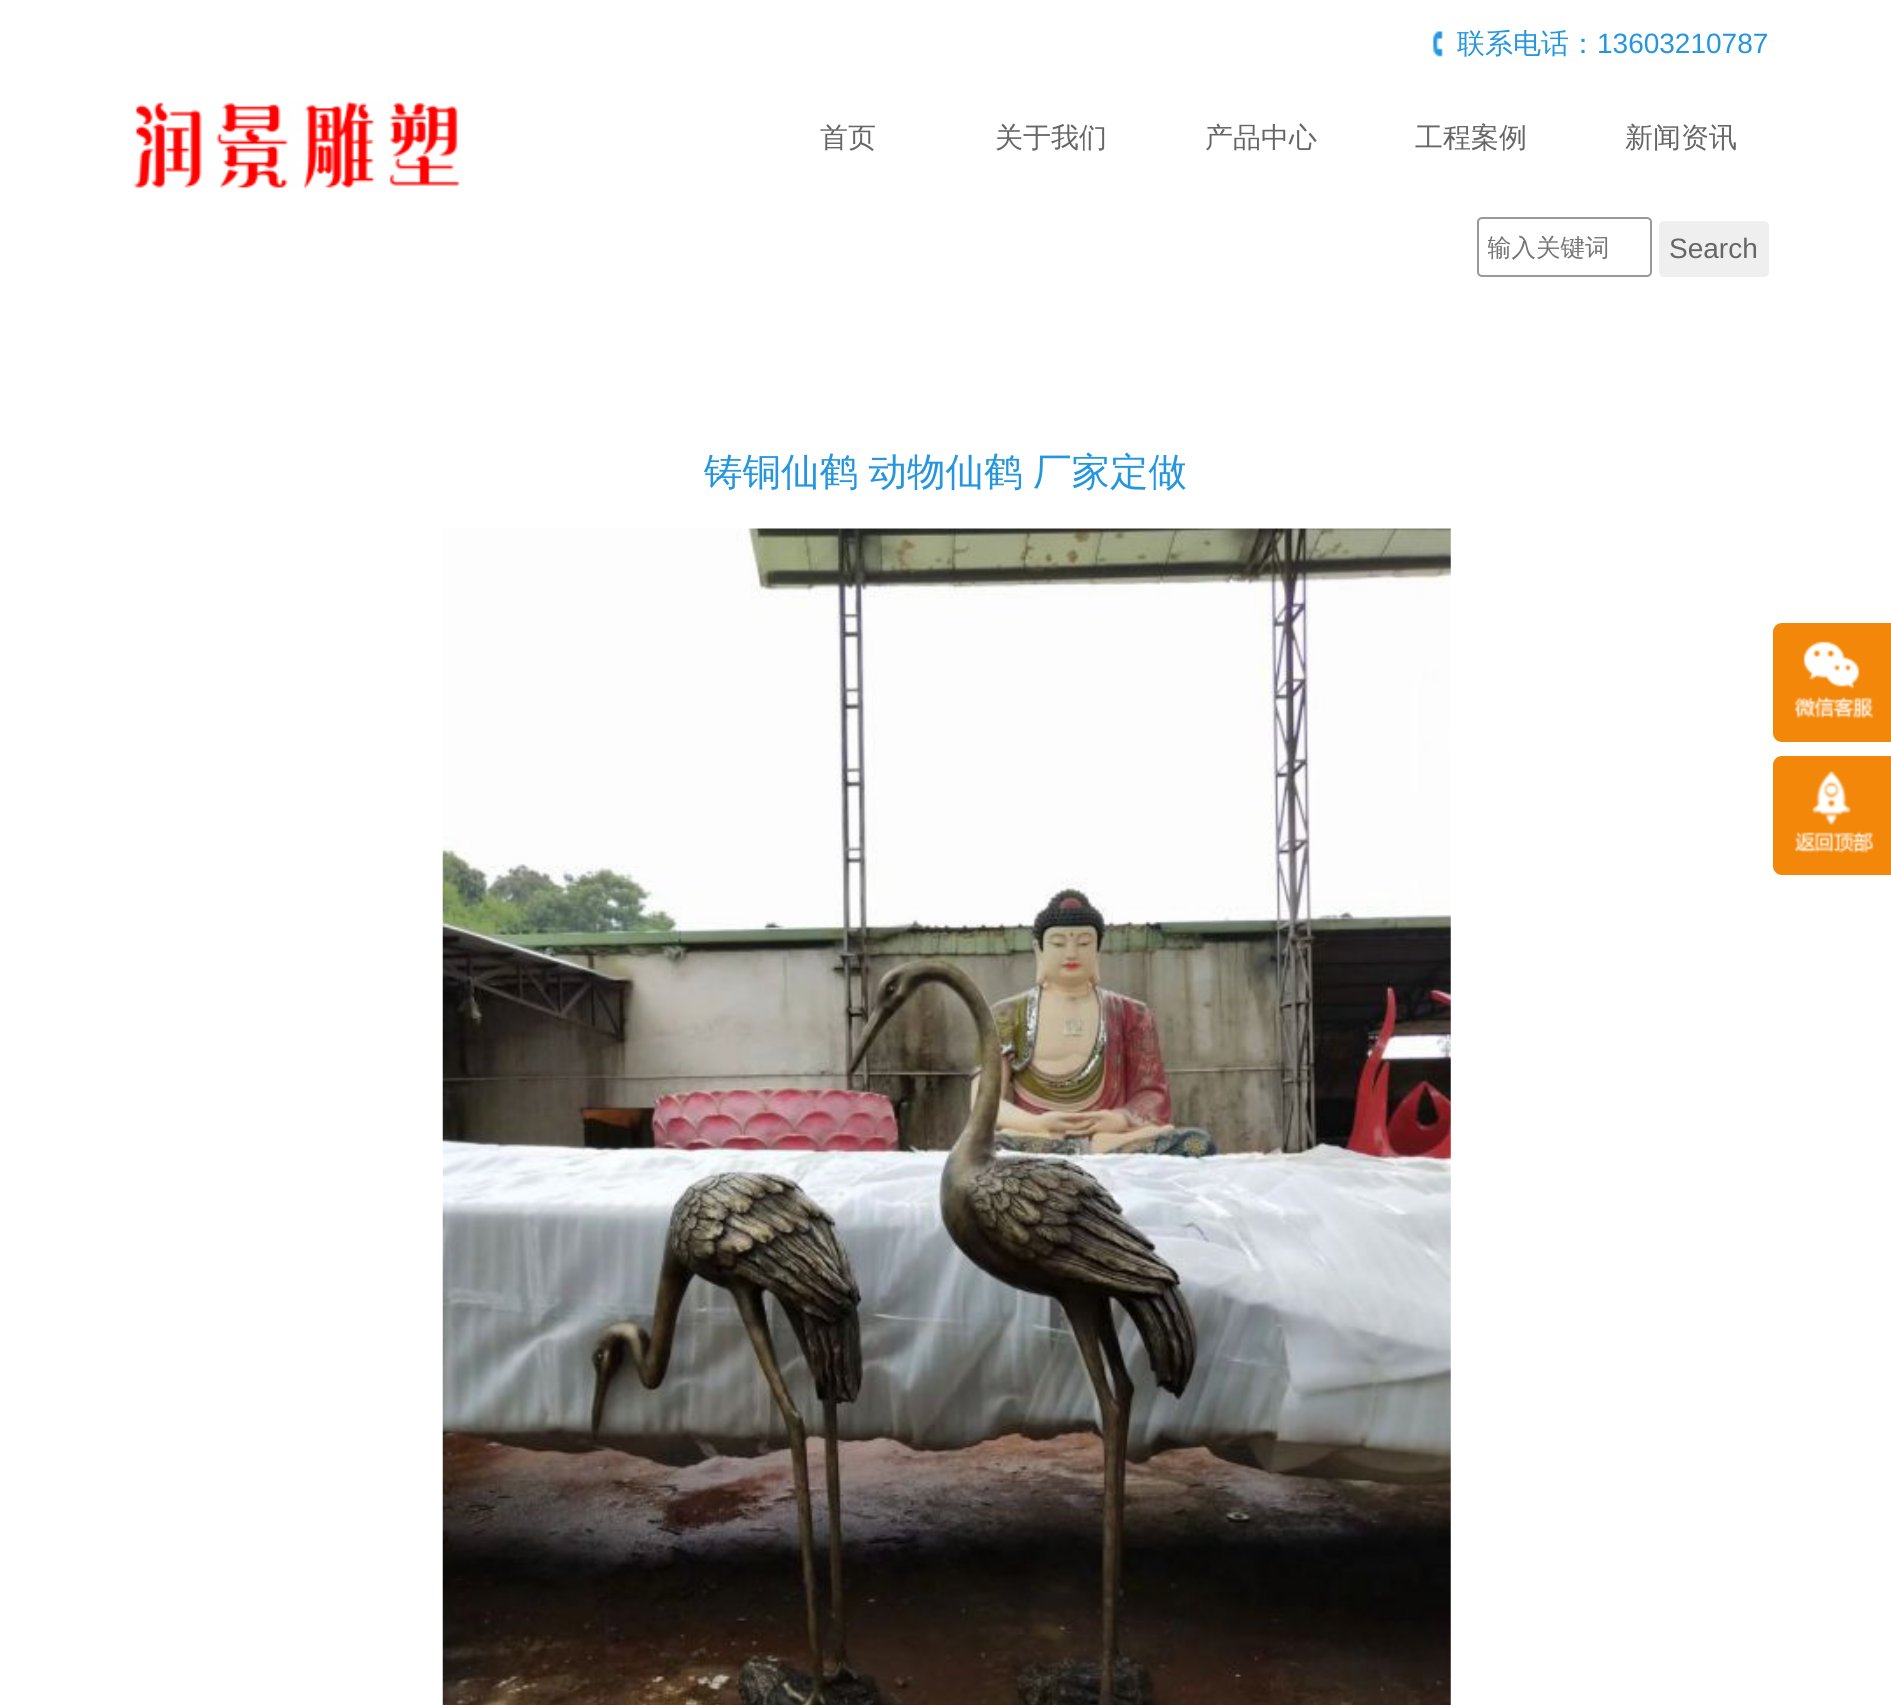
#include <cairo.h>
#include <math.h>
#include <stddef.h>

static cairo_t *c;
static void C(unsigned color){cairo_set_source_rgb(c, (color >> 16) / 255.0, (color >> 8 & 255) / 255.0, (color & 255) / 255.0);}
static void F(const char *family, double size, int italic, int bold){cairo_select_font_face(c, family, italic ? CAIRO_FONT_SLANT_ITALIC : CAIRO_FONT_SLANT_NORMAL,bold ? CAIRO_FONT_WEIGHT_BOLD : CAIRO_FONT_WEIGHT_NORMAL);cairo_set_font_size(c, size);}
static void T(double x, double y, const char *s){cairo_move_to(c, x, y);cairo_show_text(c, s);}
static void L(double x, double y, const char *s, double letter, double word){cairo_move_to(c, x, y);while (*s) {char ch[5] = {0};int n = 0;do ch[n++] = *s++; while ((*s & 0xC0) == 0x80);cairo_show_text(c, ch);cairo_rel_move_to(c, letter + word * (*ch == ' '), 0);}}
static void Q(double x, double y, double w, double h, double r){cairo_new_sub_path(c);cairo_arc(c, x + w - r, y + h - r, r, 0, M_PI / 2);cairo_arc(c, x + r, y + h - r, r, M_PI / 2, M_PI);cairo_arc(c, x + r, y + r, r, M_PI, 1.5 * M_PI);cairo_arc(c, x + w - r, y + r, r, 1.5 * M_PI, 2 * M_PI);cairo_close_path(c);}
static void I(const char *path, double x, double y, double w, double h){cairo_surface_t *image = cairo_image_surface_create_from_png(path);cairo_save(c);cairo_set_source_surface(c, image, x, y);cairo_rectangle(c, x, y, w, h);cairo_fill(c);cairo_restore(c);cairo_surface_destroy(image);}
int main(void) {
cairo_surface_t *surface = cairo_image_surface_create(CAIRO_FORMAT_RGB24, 1891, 1705);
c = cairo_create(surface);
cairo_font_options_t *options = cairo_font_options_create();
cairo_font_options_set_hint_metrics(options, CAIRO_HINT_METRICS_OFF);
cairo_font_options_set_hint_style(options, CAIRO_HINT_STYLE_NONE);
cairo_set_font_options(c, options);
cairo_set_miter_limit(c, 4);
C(0xffffff);
cairo_paint(c);
I("1.png",1432,31,11,26);
F("WenQuanYi Zen Hei Medium",28,0,0);
C(0x2496df);
T(1457,53,"联系电话：");
F("Liberation Sans",28,0,0);
T(1597,53,"13603210787");
I("2.png",132,101,329,88);
F("WenQuanYi Zen Hei Medium",28,0,0);
C(0x666666);
T(820,147,"首页");
T(995,147,"关于我们");
T(1205,147,"产品中心");
T(1415,147,"工程案例");
T(1625,147,"新闻资讯");
Q(1478,218,173,58,4);
C(0x999999);
cairo_stroke(c);
cairo_save(c);
cairo_rectangle(c,1488,233,154,31);
cairo_clip(c);
F("WenQuanYi Zen Hei Medium",24.5,0,0);
C(0x757575);
T(1487,256,"输入关键词");
cairo_restore(c);
C(0xefefef);
Q(1659,221,110,56,5);
cairo_fill(c);
F("Liberation Sans",28,0,0);
C(0x666666);
T(1669,258,"Search");
F("WenQuanYi Zen Hei Medium",38.5,0,0);
C(0x2496df);
L(704,485,"铸铜仙鹤 动物仙鹤 厂家定做",0,-1);
I("3.png",442,528,1009,1177);
C(0xf28709);
cairo_new_path(c);
cairo_move_to(c,1782,623);
cairo_line_to(c,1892,623);
cairo_line_to(c,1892,742);
cairo_line_to(c,1782,742);
cairo_curve_to(c,1777,742,1773,738,1773,733);
cairo_line_to(c,1773,632);
cairo_curve_to(c,1773,627,1777,623,1782,623);
cairo_close_path(c);
cairo_fill(c);
I("4.png",1794,641,80,78);
cairo_new_path(c);
cairo_move_to(c,1782,756);
cairo_line_to(c,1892,756);
cairo_line_to(c,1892,875);
cairo_line_to(c,1782,875);
cairo_curve_to(c,1777,875,1773,871,1773,866);
cairo_line_to(c,1773,765);
cairo_curve_to(c,1773,760,1777,756,1782,756);
cairo_close_path(c);
cairo_fill(c);
I("5.png",1794,771,80,82);
cairo_surface_write_to_png(surface, "o.png");
cairo_font_options_destroy(options);
cairo_destroy(c);
cairo_surface_destroy(surface);
return 0;
}
